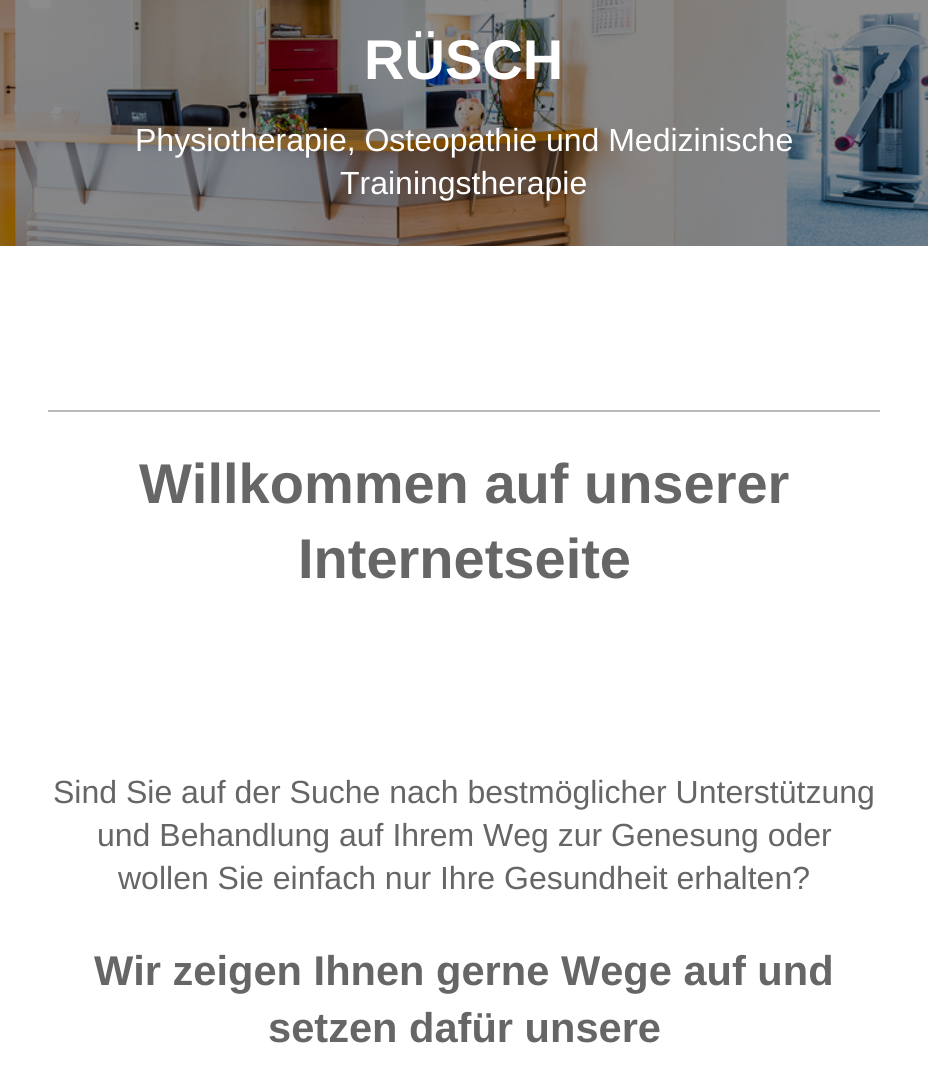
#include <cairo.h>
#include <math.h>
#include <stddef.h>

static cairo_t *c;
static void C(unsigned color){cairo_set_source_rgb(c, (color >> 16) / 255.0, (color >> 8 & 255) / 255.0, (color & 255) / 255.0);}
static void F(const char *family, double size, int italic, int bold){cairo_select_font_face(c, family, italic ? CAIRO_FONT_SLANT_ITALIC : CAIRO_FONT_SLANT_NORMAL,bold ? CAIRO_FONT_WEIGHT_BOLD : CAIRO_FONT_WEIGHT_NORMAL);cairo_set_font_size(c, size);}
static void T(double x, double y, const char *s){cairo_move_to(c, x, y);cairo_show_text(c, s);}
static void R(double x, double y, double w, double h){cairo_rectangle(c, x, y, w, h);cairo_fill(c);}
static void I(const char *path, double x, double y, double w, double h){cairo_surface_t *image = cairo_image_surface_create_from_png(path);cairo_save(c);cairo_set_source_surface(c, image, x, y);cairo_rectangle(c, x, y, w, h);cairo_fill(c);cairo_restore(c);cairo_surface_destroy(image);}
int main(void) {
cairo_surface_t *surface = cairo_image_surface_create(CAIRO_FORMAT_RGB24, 928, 1082);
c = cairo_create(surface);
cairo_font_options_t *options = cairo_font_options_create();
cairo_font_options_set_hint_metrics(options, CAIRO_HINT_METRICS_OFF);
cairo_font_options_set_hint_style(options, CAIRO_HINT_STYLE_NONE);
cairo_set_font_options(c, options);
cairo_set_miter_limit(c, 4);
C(0xffffff);
cairo_paint(c);
I("1.png",0,0,928,246);
F("Liberation Sans",56,0,1);
C(0xffffff);
T(364,79,"RÜSCH");
F("Liberation Sans",32,0,0);
T(135,151,"Physiotherapie, Osteopathie und Medizinische");
T(340,194,"Trainingstherapie");
C(0xbababa);
R(48,410,832,2);
F("Liberation Sans",56,0,1);
C(0x666666);
T(139,503,"Willkommen auf unserer");
T(298,578,"Internetseite");
F("Liberation Sans",32,0,0);
T(53,803,"Sind Sie auf der Suche nach bestmöglicher Unterstützung");
T(97,846,"und Behandlung auf Ihrem Weg zur Genesung oder");
T(118,889,"wollen Sie einfach nur Ihre Gesundheit erhalten?");
F("Liberation Sans",41.6,0,1);
T(94,985,"Wir zeigen Ihnen gerne Wege auf und");
T(268,1042,"setzen dafür unsere");
cairo_surface_write_to_png(surface, "o.png");
cairo_font_options_destroy(options);
cairo_destroy(c);
cairo_surface_destroy(surface);
return 0;
}
